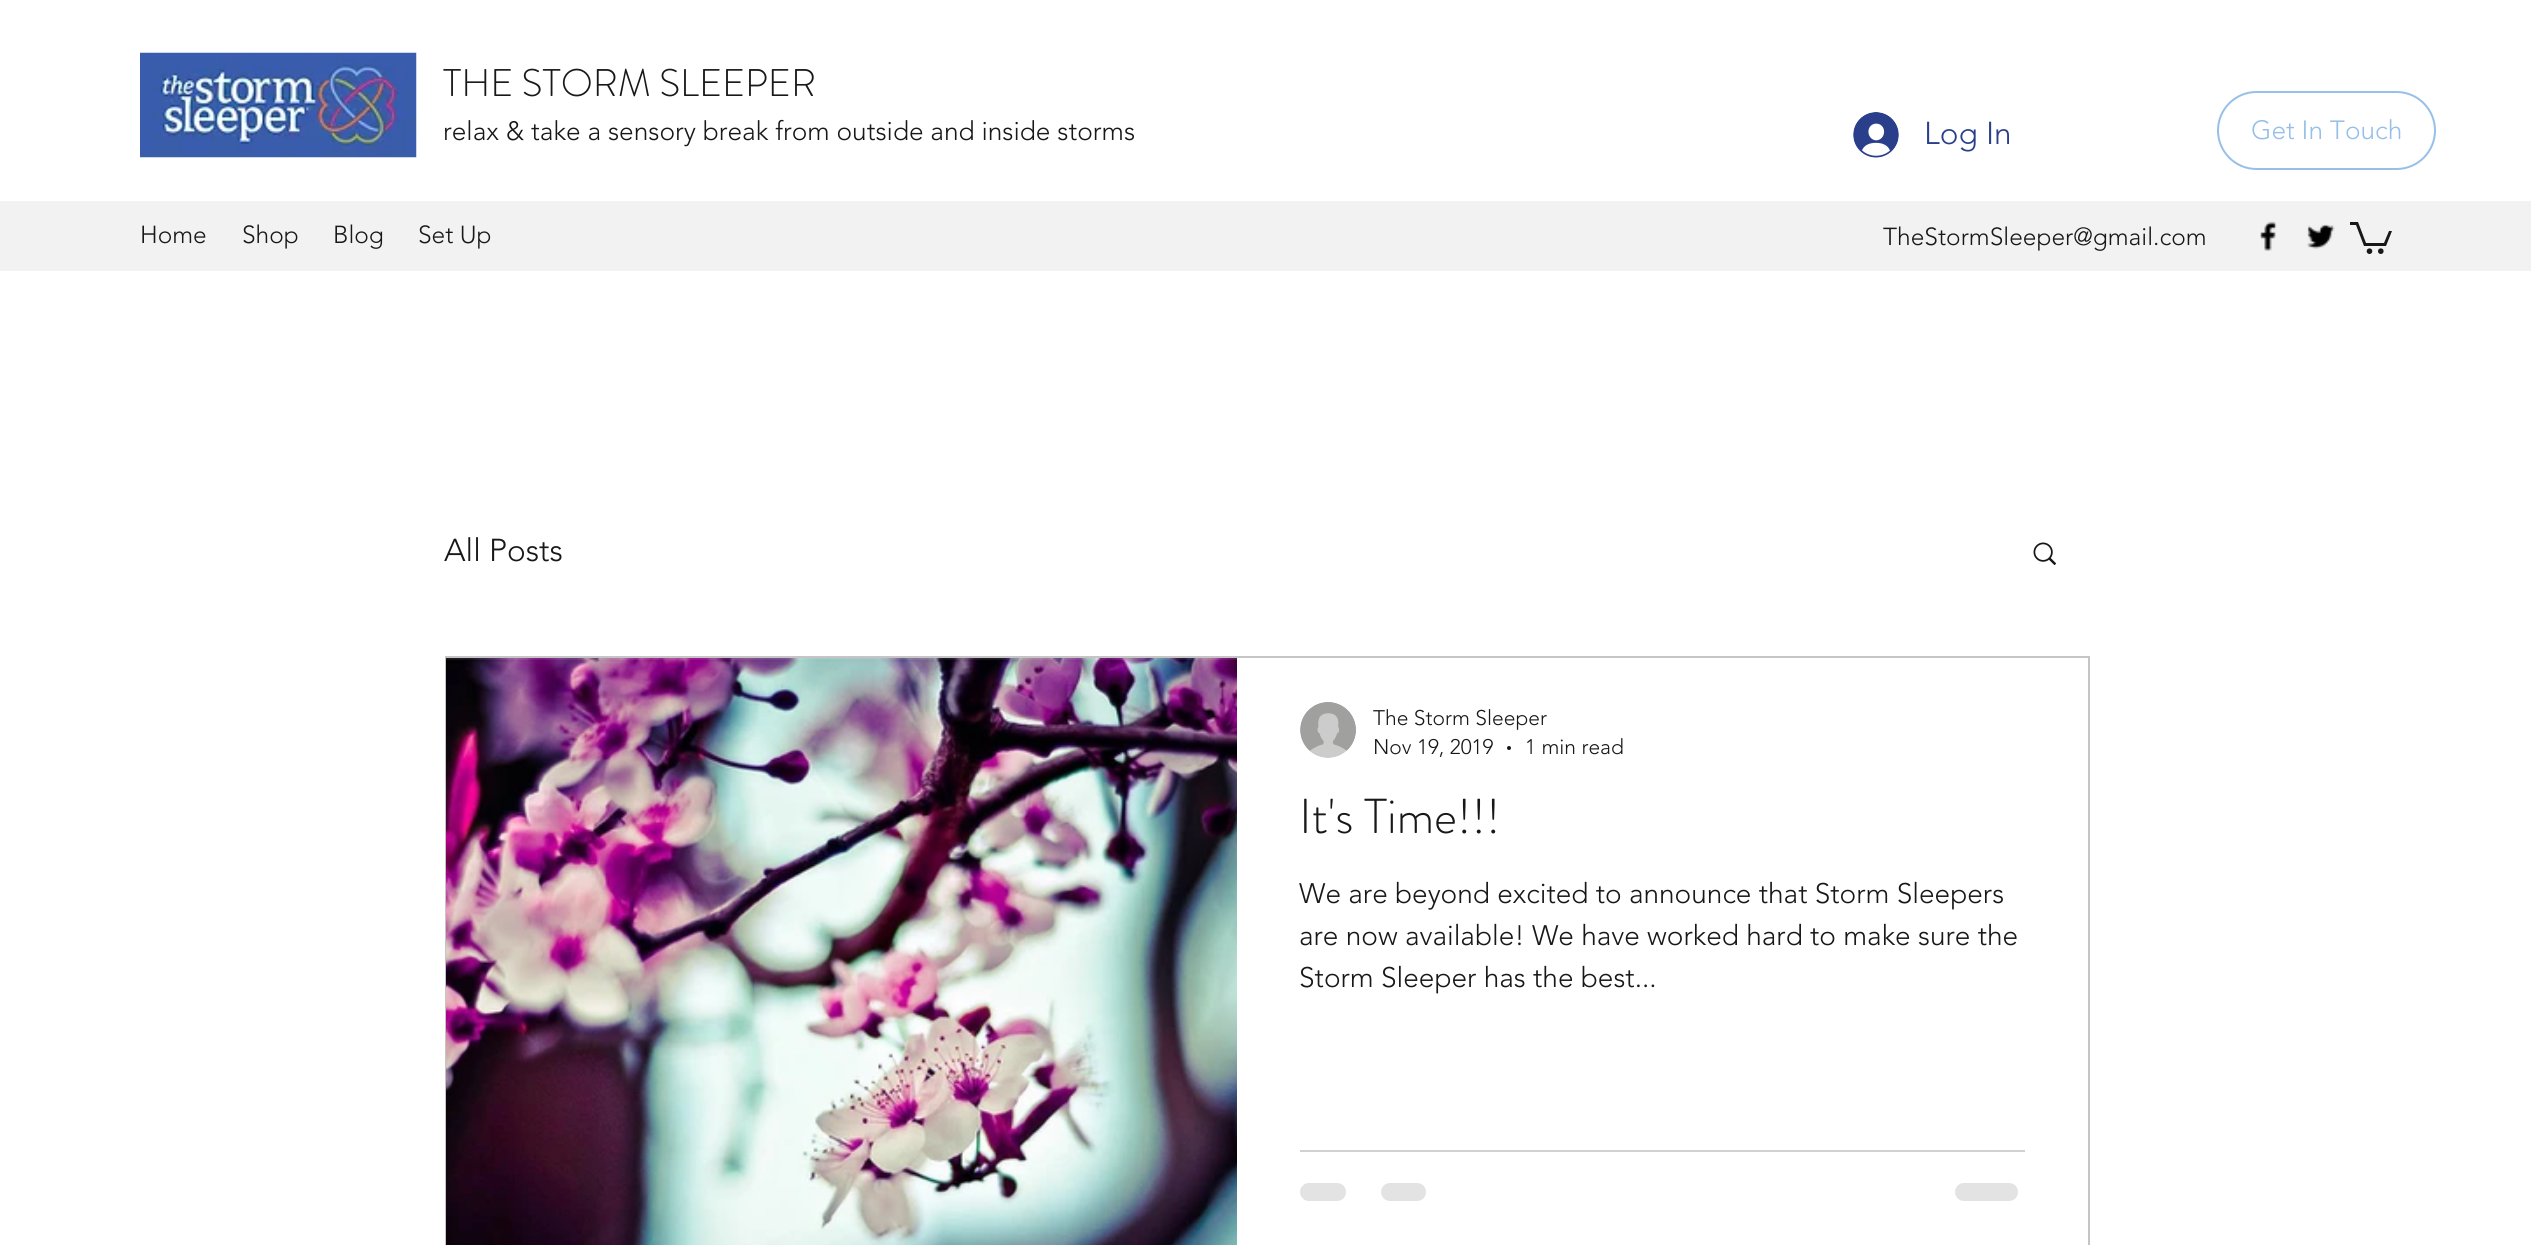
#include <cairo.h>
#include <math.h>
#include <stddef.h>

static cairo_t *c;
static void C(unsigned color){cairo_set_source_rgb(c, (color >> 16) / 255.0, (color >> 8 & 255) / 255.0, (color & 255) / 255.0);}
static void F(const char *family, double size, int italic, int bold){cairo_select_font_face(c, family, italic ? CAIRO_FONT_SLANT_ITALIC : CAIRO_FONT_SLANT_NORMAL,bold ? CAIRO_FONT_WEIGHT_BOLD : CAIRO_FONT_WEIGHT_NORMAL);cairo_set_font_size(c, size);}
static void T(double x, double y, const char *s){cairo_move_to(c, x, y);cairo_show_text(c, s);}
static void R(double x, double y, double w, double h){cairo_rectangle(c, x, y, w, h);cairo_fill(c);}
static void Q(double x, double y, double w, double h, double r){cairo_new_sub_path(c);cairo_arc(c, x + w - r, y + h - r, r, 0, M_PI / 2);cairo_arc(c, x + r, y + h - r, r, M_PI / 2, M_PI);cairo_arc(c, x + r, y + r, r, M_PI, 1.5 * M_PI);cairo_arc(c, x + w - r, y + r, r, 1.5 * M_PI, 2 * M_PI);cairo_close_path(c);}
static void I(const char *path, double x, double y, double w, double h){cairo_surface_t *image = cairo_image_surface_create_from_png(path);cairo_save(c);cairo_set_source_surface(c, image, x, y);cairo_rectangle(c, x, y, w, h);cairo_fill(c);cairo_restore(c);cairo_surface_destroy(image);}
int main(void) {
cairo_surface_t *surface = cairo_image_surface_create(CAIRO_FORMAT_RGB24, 2531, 1245);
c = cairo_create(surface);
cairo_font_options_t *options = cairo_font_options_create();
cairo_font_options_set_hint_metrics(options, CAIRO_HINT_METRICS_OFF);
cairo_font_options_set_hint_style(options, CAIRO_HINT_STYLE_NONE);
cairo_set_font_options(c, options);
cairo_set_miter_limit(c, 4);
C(0xffffff);
cairo_paint(c);
I("1.png",140,52,277,106);
F("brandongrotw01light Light",38.5,0,0);
C(0x181818);
T(443,96,"THE STORM SLEEPER");
F("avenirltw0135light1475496 Light",26.25,0,0);
T(443,140,"relax & take a sensory break from outside and inside storms");
Q(2218,92,217,77,38.5);
C(0x97c0e8);
cairo_stroke(c);
T(2251,139,"Get In Touch");
I("2.png",1853,112,46,46);
F("avenirltw0135light1475496 Light",31.5,0,0);
C(0x2a3f8c);
T(1924,144,"Log In");
C(0xf2f2f3);
R(0,201,2531,70);
F("avenirltw0135light1475496 Light",24.5,0,0);
C(0x181818);
T(140,243,"Home");
T(242,243,"Shop");
T(333,243,"Blog");
T(418,243,"Set Up");
T(1883,245,"TheStormSleeper@gmail.com");
I("3.png",2260,221,17,30);
I("4.png",2307,224,28,25);
cairo_new_path(c);
cairo_move_to(c,2392,231);
cairo_line_to(c,2386,246);
cairo_line_to(c,2364,246);
cairo_line_to(c,2356,225);
cairo_line_to(c,2350,225);
cairo_line_to(c,2350,222);
cairo_line_to(c,2358,222);
cairo_line_to(c,2366,243);
cairo_line_to(c,2384,243);
cairo_line_to(c,2389,231);
cairo_fill(c);
cairo_arc(c,2380.8,251.2,2.8,0,2 * M_PI);
cairo_fill(c);
cairo_arc(c,2369.5,251.2,2.8,0,2 * M_PI);
cairo_fill(c);
F("avenirltw0135light1475496 Light",31.5,0,0);
T(444,561,"All Posts");
I("5.png",2033,542,24,24);
cairo_rectangle(c,446,657,1643,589);
C(0xc5c5c5);
cairo_stroke(c);
I("6.png",446,658,791,587);
I("7.png",1300,702,56,56);
F("avenirltw0135light1475496 Light",21,0,0);
C(0x181818);
T(1373,725,"The Storm Sleeper");
T(1373,754,"Nov 19, 2019");
cairo_new_path(c);
cairo_arc(c,1509,748,2,0,2 * M_PI);
cairo_fill(c);
T(1525,754,"1 min read");
F("brandongrotw01light Light",49,0,0);
T(1299,833,"It's Time!!!");
F("avenirltw0135light1475496 Light",28,0,0);
T(1299,903,"We are beyond excited to announce that Storm Sleepers");
T(1299,945,"are now available! We have worked hard to make sure the");
T(1299,987,"Storm Sleeper has the best...");
C(0xd1d1d1);
R(1300,1150,725,2);
C(0xe3e3e3);
Q(1300,1183,46,18,9);
cairo_fill(c);
Q(1381,1183,45,18,9);
cairo_fill(c);
Q(1955,1183,63,18,9);
cairo_fill(c);
cairo_surface_write_to_png(surface, "o.png");
cairo_font_options_destroy(options);
cairo_destroy(c);
cairo_surface_destroy(surface);
return 0;
}
